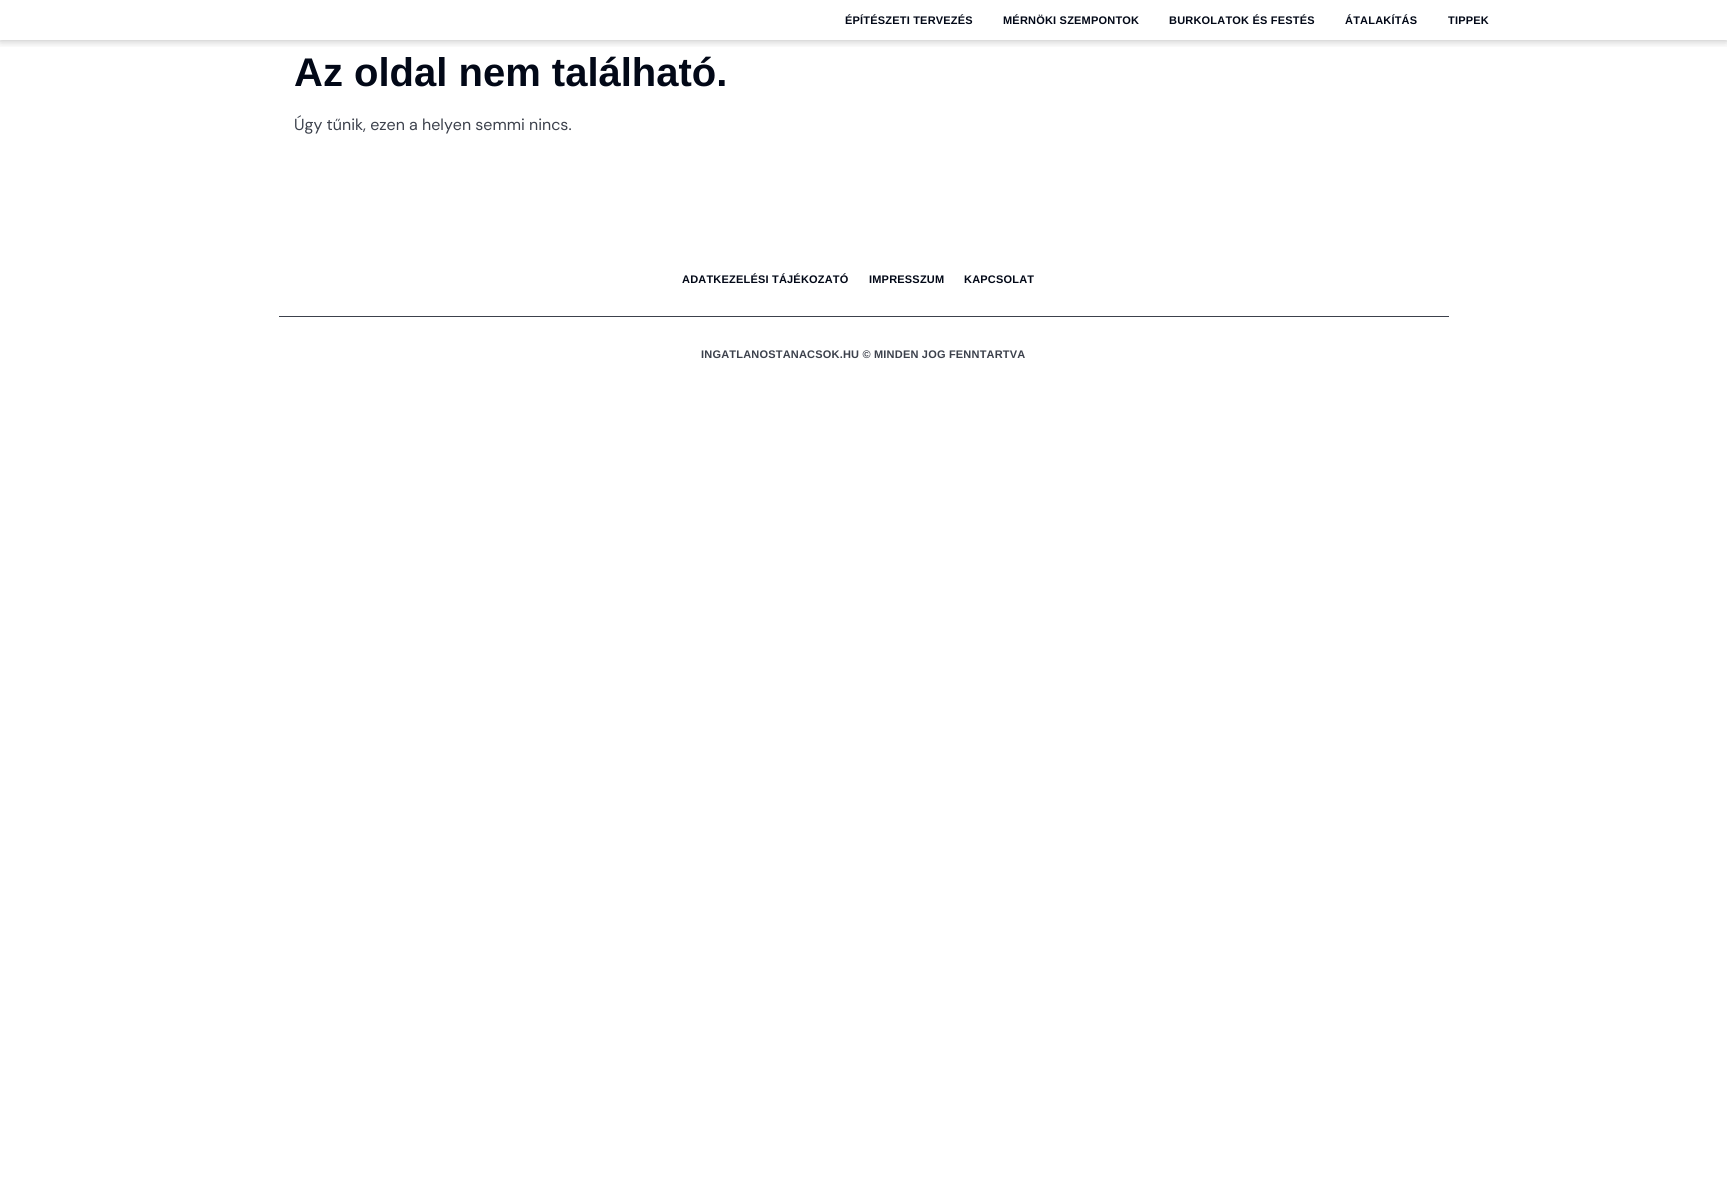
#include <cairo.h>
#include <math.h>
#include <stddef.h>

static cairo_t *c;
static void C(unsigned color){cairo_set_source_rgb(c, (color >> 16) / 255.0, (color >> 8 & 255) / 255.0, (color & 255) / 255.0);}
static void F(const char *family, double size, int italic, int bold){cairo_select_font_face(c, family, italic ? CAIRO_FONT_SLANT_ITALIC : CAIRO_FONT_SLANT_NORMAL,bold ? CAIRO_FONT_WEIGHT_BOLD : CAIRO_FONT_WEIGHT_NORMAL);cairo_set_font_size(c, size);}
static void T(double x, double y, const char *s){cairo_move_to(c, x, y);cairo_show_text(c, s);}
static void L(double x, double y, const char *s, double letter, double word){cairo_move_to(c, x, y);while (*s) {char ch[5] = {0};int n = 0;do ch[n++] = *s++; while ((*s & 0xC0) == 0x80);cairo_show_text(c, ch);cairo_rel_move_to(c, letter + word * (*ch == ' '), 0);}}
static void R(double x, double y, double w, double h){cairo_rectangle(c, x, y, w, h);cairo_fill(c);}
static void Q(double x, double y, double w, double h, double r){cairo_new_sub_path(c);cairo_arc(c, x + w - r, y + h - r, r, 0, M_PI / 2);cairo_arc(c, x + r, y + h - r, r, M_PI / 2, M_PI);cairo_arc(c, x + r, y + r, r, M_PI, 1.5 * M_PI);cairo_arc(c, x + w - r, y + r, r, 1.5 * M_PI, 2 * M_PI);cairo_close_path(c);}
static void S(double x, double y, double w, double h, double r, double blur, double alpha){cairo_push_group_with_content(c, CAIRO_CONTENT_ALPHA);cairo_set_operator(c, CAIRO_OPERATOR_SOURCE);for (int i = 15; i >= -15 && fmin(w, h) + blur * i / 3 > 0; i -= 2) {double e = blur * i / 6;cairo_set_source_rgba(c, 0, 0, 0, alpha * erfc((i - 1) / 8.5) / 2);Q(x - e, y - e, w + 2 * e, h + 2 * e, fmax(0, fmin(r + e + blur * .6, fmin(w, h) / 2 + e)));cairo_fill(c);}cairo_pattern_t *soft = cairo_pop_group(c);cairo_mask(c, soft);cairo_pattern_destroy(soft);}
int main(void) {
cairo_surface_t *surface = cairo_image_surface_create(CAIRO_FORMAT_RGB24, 1727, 1186);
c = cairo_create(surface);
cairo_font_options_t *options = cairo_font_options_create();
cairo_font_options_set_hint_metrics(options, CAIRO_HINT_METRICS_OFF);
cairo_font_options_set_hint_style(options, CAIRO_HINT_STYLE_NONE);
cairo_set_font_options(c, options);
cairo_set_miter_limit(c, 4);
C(0xffffff);
cairo_paint(c);
cairo_save(c);
cairo_rectangle(c,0,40,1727,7);
cairo_clip(c);
C(0x000000);
S(0,0,1727,40,0,5,.29);
cairo_restore(c);
F("Liberation Sans",11,0,1);
C(0x020817);
L(845,24,"ÉPÍTÉSZETI TERVEZÉS",.2,0);
L(1003,24,"MÉRNÖKI SZEMPONTOK",.2,0);
L(1169,24,"BURKOLATOK ÉS FESTÉS",.2,0);
L(1345,24,"ÁTALAKÍTÁS",.2,0);
L(1448,24,"TIPPEK",.2,0);
F("Liberation Sans",40,0,1);
T(294,86,"Az oldal nem található.");
F("DM Sans",16,0,0);
C(0x3c414c);
T(294,130,"Úgy tűnik, ezen a helyen semmi nincs.");
F("Liberation Sans",11,0,1);
C(0x020817);
L(682,283,"ADATKEZELÉSI TÁJÉKOZATÓ",.2,0);
L(869,283,"IMPRESSZUM",.2,0);
L(964,283,"KAPCSOLAT",.2,0);
C(0x3c414c);
R(279,316,1170,1);
L(701,358,"INGATLANOSTANACSOK.HU © MINDEN JOG FENNTARTVA",.2,0);
cairo_surface_write_to_png(surface, "o.png");
cairo_font_options_destroy(options);
cairo_destroy(c);
cairo_surface_destroy(surface);
return 0;
}
